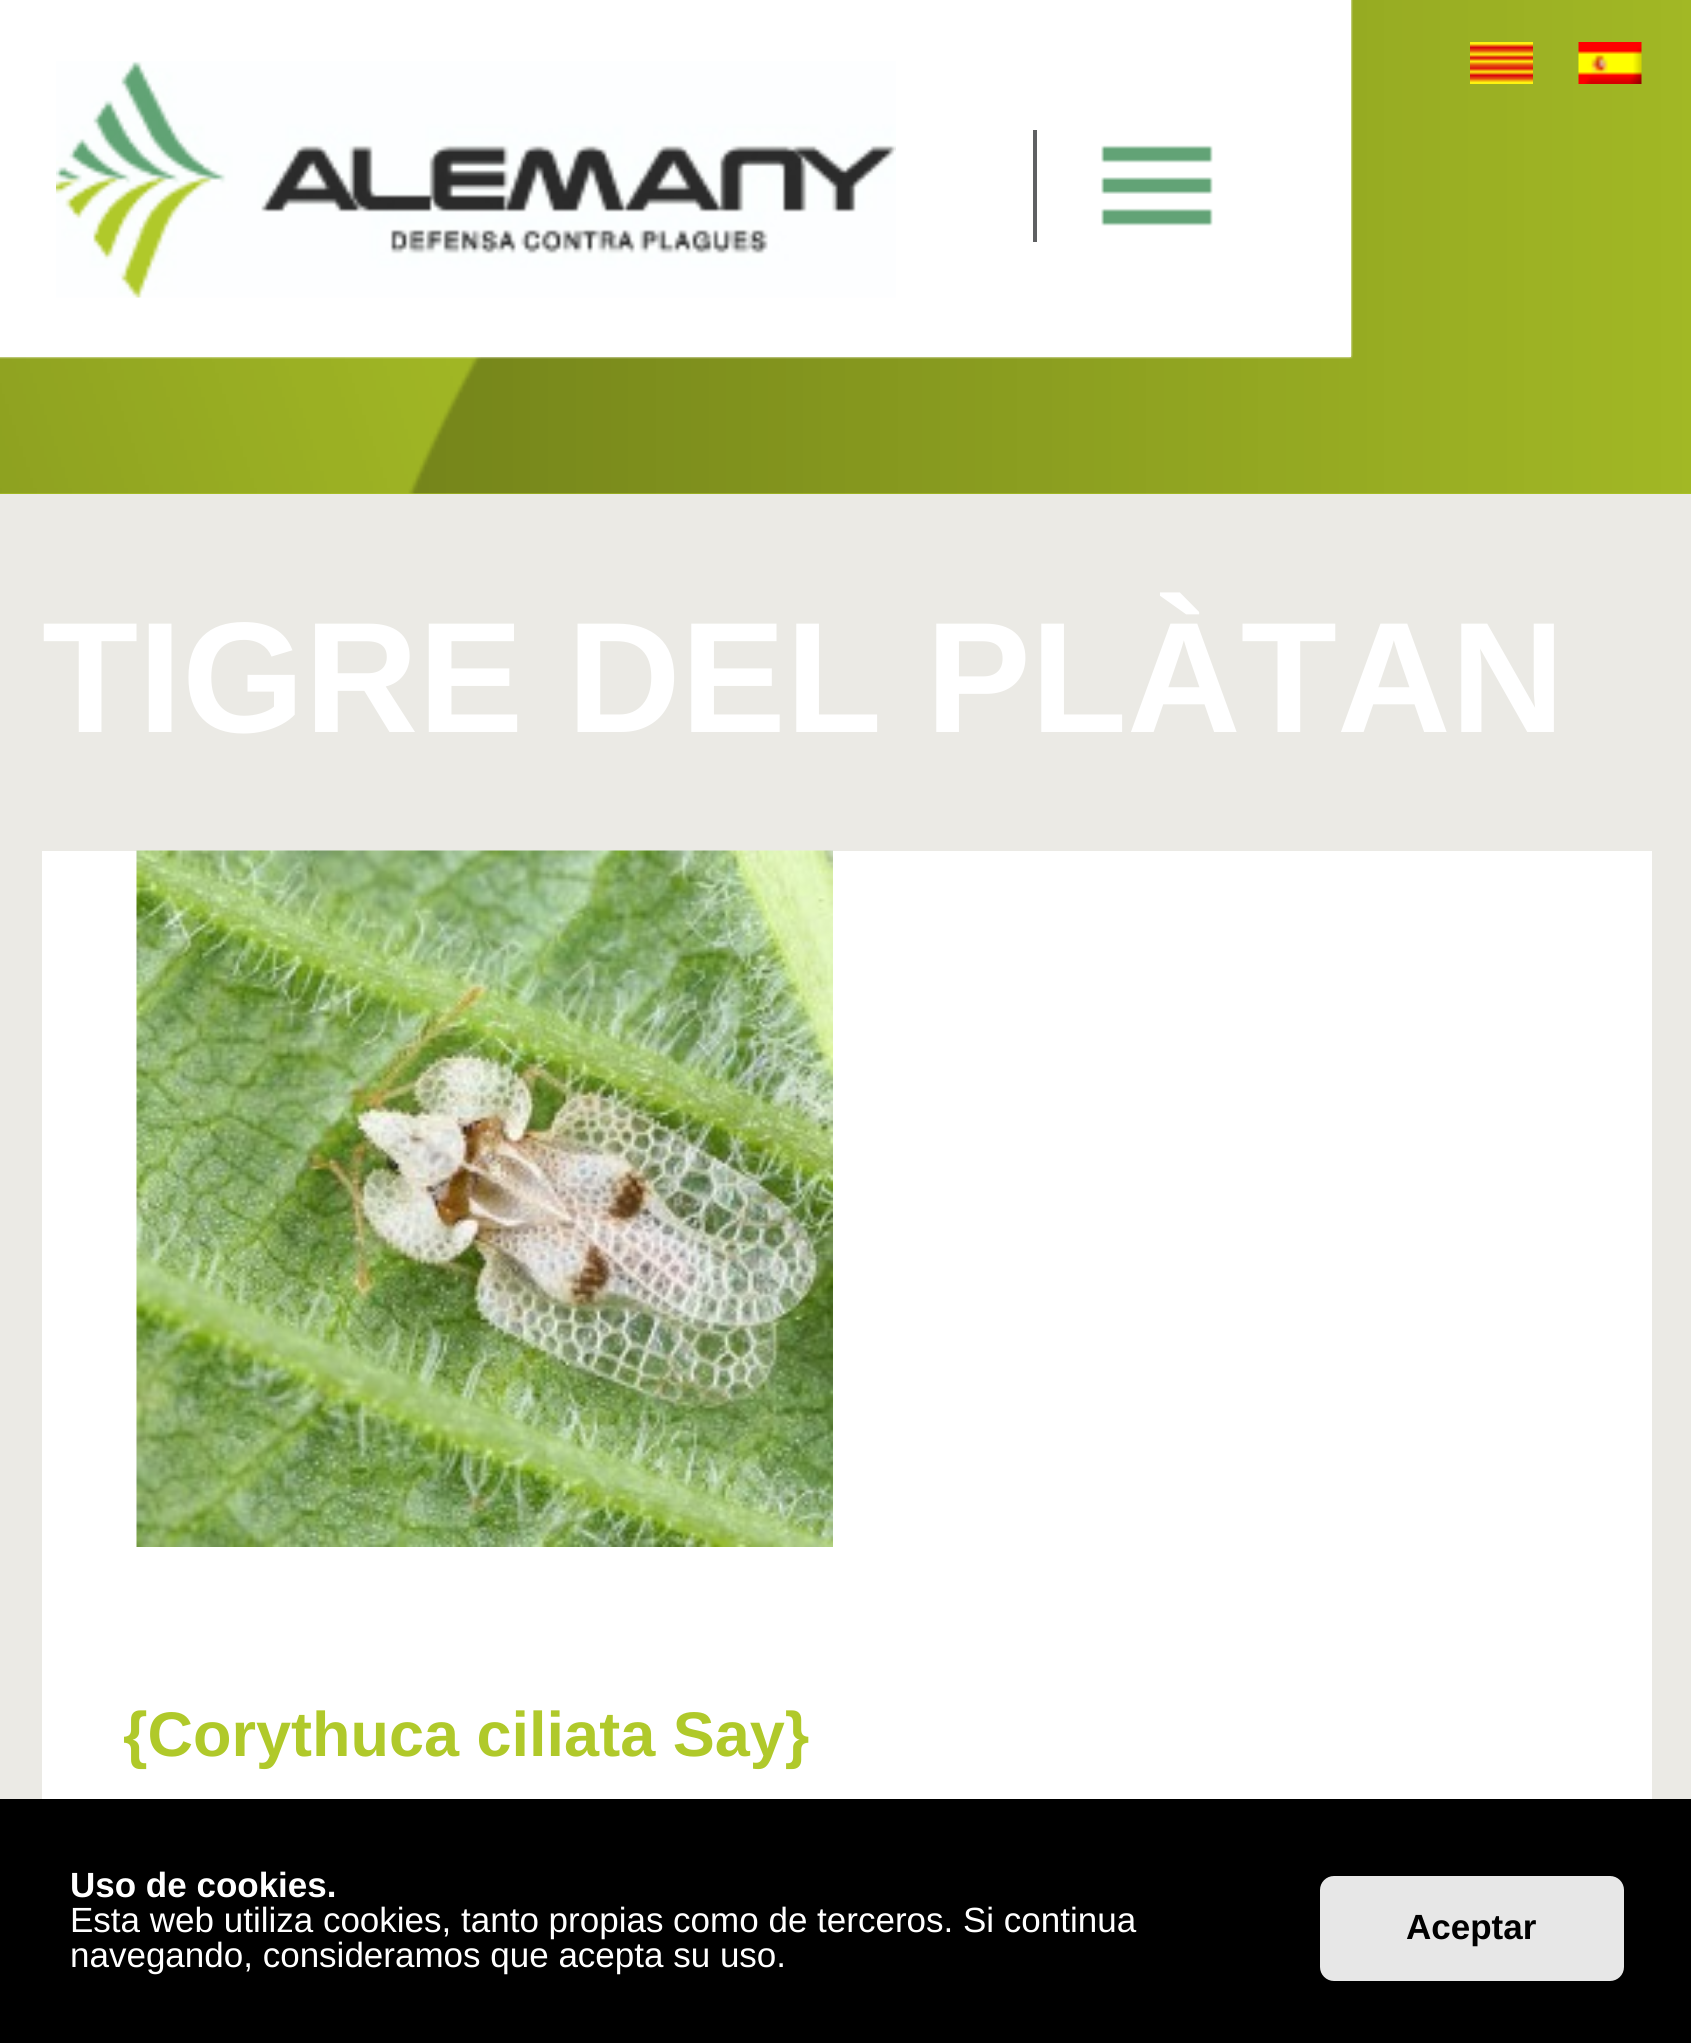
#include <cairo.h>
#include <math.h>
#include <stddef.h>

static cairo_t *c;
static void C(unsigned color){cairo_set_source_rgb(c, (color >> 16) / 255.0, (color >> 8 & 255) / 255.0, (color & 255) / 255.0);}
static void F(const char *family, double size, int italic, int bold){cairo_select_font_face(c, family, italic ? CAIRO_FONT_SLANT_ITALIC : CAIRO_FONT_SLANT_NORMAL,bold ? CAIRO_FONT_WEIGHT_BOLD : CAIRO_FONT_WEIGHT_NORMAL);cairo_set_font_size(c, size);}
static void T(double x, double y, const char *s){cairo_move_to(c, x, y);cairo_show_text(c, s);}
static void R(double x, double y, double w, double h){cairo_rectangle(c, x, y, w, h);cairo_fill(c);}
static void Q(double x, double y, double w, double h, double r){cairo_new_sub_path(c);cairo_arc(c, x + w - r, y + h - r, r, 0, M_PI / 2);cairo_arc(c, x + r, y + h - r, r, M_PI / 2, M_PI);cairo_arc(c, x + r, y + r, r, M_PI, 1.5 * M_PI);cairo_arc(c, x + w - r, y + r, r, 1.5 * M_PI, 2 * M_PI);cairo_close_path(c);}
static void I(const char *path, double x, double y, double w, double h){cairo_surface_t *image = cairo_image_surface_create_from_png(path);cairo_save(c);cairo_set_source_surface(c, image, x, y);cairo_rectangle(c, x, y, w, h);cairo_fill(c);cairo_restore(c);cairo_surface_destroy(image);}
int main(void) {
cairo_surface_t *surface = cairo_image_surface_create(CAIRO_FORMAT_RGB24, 1691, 2043);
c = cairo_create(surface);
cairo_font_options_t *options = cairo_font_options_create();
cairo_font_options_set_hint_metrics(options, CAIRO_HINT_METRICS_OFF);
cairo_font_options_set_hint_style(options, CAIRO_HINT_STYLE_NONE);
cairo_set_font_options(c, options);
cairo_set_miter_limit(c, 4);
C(0xb0c828);
cairo_paint(c);
I("1.png",0,0,1691,494);
I("2.png",0,0,1353,359);
C(0xffffff);
R(0,0,1351,357);
I("3.png",56,61,840,237);
I("4.png",1101,145,112,81);
C(0x5f6062);
R(1033,130,4,112);
I("5.png",1470,42,63,42);
I("6.png",1578,42,64,42);
C(0xebeae5);
R(0,494,1691,1305);
F("Liberation Sans",157.5,0,1);
C(0xffffff);
T(42,732,"TIGRE DEL PLÀTAN");
R(42,851,1610,948);
I("7.png",136,850,697,697);
F("Liberation Sans",63,0,1);
C(0xb0c92a);
T(123,1756,"{Corythuca ciliata Say}");
C(0x000000);
R(0,1799,1691,244);
F("Liberation Sans",35,0,1);
C(0xffffff);
T(70,1897,"Uso de cookies.");
F("Liberation Sans",35,0,0);
T(70,1932,"Esta web utiliza cookies, tanto propias como de terceros. Si continua");
T(70,1967,"navegando, consideramos que acepta su uso.");
C(0xe7e7e7);
Q(1320,1876,304,105,14);
cairo_fill(c);
F("Liberation Sans",35,0,1);
C(0x000000);
T(1406,1939,"Aceptar");
cairo_surface_write_to_png(surface, "o.png");
cairo_font_options_destroy(options);
cairo_destroy(c);
cairo_surface_destroy(surface);
return 0;
}
